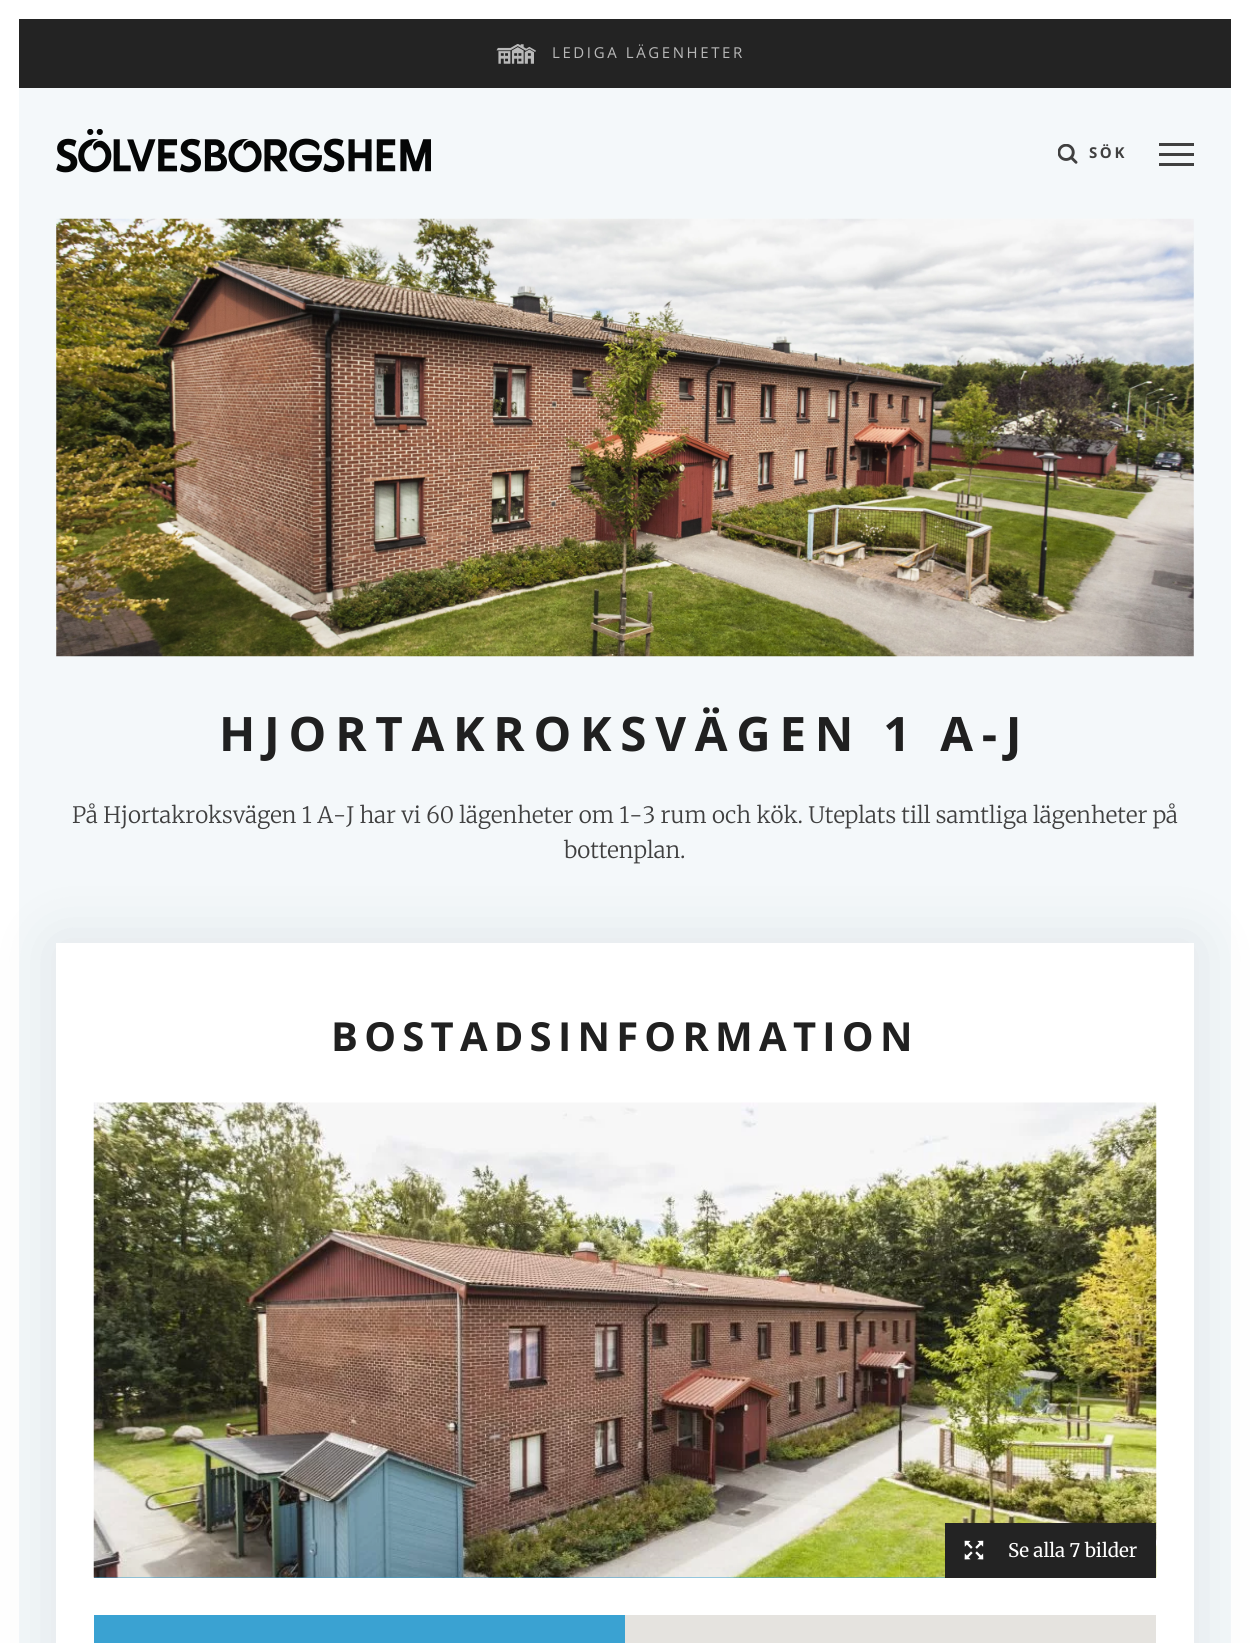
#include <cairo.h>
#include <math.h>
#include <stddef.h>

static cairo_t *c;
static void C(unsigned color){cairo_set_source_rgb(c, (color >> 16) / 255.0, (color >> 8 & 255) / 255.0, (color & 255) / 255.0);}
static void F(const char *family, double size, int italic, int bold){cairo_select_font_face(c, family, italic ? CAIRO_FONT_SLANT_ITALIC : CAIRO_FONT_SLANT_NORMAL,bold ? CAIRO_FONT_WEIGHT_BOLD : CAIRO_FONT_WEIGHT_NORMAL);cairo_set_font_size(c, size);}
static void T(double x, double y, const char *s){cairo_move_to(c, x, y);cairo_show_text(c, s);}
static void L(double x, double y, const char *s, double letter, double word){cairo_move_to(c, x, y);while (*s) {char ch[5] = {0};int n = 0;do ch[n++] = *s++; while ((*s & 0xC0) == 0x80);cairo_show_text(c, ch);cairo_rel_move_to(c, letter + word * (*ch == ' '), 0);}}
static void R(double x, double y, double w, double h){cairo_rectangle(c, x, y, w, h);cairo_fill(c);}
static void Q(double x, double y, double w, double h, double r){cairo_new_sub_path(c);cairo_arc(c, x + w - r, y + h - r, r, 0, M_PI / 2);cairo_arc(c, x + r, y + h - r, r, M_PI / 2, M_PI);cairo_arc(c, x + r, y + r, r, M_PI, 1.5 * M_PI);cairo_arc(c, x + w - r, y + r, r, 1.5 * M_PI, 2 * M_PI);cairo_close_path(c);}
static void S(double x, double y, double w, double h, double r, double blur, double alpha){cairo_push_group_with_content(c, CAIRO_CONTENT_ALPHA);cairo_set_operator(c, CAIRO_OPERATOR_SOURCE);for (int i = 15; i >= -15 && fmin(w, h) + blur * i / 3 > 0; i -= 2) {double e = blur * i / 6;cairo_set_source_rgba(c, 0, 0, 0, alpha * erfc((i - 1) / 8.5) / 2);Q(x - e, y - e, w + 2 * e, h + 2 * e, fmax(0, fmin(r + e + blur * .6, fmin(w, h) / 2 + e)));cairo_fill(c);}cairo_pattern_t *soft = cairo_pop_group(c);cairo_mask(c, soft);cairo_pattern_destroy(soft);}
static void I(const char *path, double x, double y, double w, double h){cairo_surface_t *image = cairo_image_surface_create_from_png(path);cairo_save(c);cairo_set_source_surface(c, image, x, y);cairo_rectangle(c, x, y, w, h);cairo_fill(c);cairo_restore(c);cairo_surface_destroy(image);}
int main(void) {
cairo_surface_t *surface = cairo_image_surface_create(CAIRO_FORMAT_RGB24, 1250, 1643);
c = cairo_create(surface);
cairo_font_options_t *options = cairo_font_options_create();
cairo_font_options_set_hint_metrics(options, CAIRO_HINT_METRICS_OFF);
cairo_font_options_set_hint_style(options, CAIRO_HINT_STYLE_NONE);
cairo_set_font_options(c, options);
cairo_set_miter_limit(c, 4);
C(0xffffff);
cairo_paint(c);
C(0xf4f8fa);
R(19,88,1212,1555);
C(0x232323);
R(19,19,1212,69);
I("1.png",496,44,40,20);
F("Open Sans",15,0,0);
C(0xb9b9b9);
L(552,58,"LEDIGA LÄGENHETER",2.6,0);
I("2.png",56,129,375,44);
I("3.png",1058,144,20,20);
F("Open Sans",15,0,1);
C(0x404040);
L(1089,158,"SÖK",2.6,0);
R(1159,143,35,3);
R(1159,153,35,3);
R(1159,163,35,3);
I("4.png",56,218,1138,439);
F("Open Sans",47.5,0,1);
C(0x202020);
L(219,751,"HJORTAKROKSVÄGEN 1 A-J",8.75,0);
F("Merriweather Light",22.5,0,0);
C(0x404040);
T(72,823,"På Hjortakroksvägen 1 A-J har vi 60 lägenheter om 1-3 rum och kök. Uteplats till samtliga lägenheter på");
C(0x0d2a38);
S(56,943,1138,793,0,31,.1);
C(0x404040);
T(564,858,"bottenplan.");
C(0xffffff);
R(56,943,1138,700);
F("Open Sans",40,0,1);
C(0x202020);
L(331,1051,"BOSTADSINFORMATION",6.25,0);
C(0x3aa2d2);
R(94,1577,851,1);
I("5.png",93,1102,1064,476);
C(0x232323);
R(945,1523,211,55);
I("6.png",964,1540,20,20);
F("Merriweather",18.75,0,0);
C(0xffffff);
T(1008,1557,"Se alla 7 bilder");
C(0x3aa2d2);
R(94,1615,531,28);
C(0xe5e3df);
R(625,1615,531,28);
cairo_surface_write_to_png(surface, "o.png");
cairo_font_options_destroy(options);
cairo_destroy(c);
cairo_surface_destroy(surface);
return 0;
}
